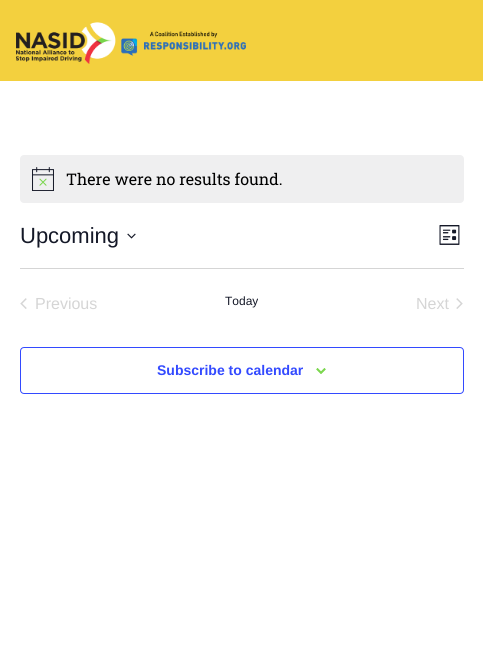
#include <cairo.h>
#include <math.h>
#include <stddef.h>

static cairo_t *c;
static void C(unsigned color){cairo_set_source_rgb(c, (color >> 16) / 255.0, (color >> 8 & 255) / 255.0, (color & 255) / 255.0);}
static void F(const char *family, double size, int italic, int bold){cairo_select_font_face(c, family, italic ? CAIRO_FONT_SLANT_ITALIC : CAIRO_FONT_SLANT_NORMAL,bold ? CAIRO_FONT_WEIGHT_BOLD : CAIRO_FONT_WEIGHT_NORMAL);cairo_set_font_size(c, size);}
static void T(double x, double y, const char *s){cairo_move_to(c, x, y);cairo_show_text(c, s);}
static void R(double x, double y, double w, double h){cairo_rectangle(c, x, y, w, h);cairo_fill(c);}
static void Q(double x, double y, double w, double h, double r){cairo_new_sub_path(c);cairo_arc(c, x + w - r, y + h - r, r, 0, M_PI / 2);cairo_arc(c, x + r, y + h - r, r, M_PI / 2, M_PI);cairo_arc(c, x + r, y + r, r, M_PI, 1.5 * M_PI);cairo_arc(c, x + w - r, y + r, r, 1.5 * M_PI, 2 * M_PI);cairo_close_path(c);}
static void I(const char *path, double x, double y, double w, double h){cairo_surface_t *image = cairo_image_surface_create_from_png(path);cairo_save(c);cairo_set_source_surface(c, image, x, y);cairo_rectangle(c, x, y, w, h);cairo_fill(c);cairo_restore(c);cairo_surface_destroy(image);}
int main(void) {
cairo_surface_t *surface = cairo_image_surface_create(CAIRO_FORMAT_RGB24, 483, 650);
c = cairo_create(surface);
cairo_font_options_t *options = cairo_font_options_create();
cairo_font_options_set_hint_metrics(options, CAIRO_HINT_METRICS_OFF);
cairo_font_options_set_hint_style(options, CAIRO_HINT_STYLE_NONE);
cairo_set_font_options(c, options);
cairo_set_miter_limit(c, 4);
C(0xffffff);
cairo_paint(c);
C(0xf3d03e);
R(0,0,483,81);
I("1.png",16,22,230,42);
C(0xefeff0);
Q(20,155,444,48,4);
cairo_fill(c);
I("2.png",32,167,22,24);
F("Roboto Slab",16,0,0);
C(0x000000);
T(66,185,"There were no results found.");
F("Liberation Sans",22,0,0);
C(0x141827);
T(20,243,"Upcoming");
I("3.png",127,233,9,6);
I("4.png",439,225,21,20);
C(0xd5d5d5);
R(20,268,444,1);
I("5.png",20,298,7,11);
F("Liberation Sans",16,0,0);
T(35,309,"Previous");
F("Liberation Sans",12,0,0);
C(0x141827);
T(225,305,"Today");
F("Liberation Sans",16,0,0);
C(0xd5d5d5);
T(416,309,"Next");
I("6.png",456,298,7,11);
Q(20.5,347.5,443,46,3.5);
C(0x334aff);
cairo_set_line_width(c,1);
cairo_stroke(c);
F("Liberation Sans",14,0,1);
T(157,375,"Subscribe to calendar");
I("7.png",316,368,10,6);
cairo_surface_write_to_png(surface, "o.png");
cairo_font_options_destroy(options);
cairo_destroy(c);
cairo_surface_destroy(surface);
return 0;
}
